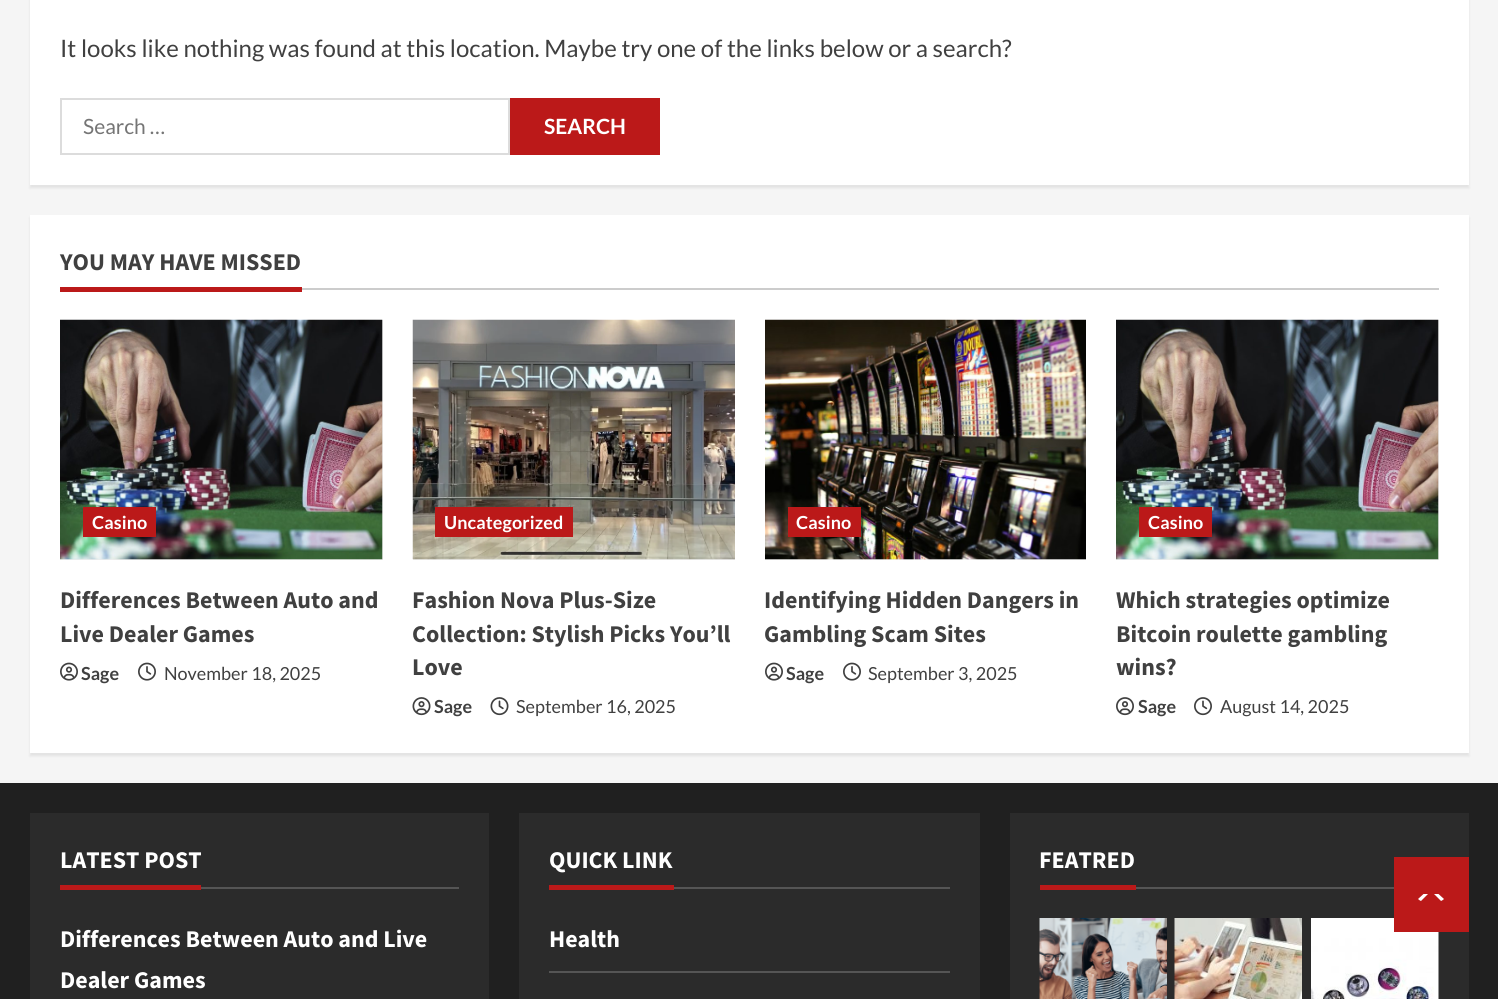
#include <cairo.h>
#include <math.h>
#include <stddef.h>

static cairo_t *c;
static void C(unsigned color){cairo_set_source_rgb(c, (color >> 16) / 255.0, (color >> 8 & 255) / 255.0, (color & 255) / 255.0);}
static void F(const char *family, double size, int italic, int bold){cairo_select_font_face(c, family, italic ? CAIRO_FONT_SLANT_ITALIC : CAIRO_FONT_SLANT_NORMAL,bold ? CAIRO_FONT_WEIGHT_BOLD : CAIRO_FONT_WEIGHT_NORMAL);cairo_set_font_size(c, size);}
static void T(double x, double y, const char *s){cairo_move_to(c, x, y);cairo_show_text(c, s);}
static void L(double x, double y, const char *s, double letter, double word){cairo_move_to(c, x, y);while (*s) {char ch[5] = {0};int n = 0;do ch[n++] = *s++; while ((*s & 0xC0) == 0x80);cairo_show_text(c, ch);cairo_rel_move_to(c, letter + word * (*ch == ' '), 0);}}
static void R(double x, double y, double w, double h){cairo_rectangle(c, x, y, w, h);cairo_fill(c);}
static void Q(double x, double y, double w, double h, double r){cairo_new_sub_path(c);cairo_arc(c, x + w - r, y + h - r, r, 0, M_PI / 2);cairo_arc(c, x + r, y + h - r, r, M_PI / 2, M_PI);cairo_arc(c, x + r, y + r, r, M_PI, 1.5 * M_PI);cairo_arc(c, x + w - r, y + r, r, 1.5 * M_PI, 2 * M_PI);cairo_close_path(c);}
static void S(double x, double y, double w, double h, double r, double blur, double alpha){cairo_push_group_with_content(c, CAIRO_CONTENT_ALPHA);cairo_set_operator(c, CAIRO_OPERATOR_SOURCE);for (int i = 15; i >= -15 && fmin(w, h) + blur * i / 3 > 0; i -= 2) {double e = blur * i / 6;cairo_set_source_rgba(c, 0, 0, 0, alpha * erfc((i - 1) / 8.5) / 2);Q(x - e, y - e, w + 2 * e, h + 2 * e, fmax(0, fmin(r + e + blur * .6, fmin(w, h) / 2 + e)));cairo_fill(c);}cairo_pattern_t *soft = cairo_pop_group(c);cairo_mask(c, soft);cairo_pattern_destroy(soft);}
static void I(const char *path, double x, double y, double w, double h){cairo_surface_t *image = cairo_image_surface_create_from_png(path);cairo_save(c);cairo_set_source_surface(c, image, x, y);cairo_rectangle(c, x, y, w, h);cairo_fill(c);cairo_restore(c);cairo_surface_destroy(image);}
int main(void) {
cairo_surface_t *surface = cairo_image_surface_create(CAIRO_FORMAT_RGB24, 1498, 999);
c = cairo_create(surface);
cairo_font_options_t *options = cairo_font_options_create();
cairo_font_options_set_hint_metrics(options, CAIRO_HINT_METRICS_OFF);
cairo_font_options_set_hint_style(options, CAIRO_HINT_STYLE_NONE);
cairo_set_font_options(c, options);
cairo_set_miter_limit(c, 4);
C(0xf5f5f5);
cairo_paint(c);
C(0x000000);
S(30,-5,1439,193,0,1.5,.08);
C(0xffffff);
R(30,0,1439,185);
F("Lato",24,0,0);
C(0x404040);
T(60,57,"It looks like nothing was found at this location. Maybe try one of the links below or a search?");
cairo_rectangle(c,61,99,448,55);
C(0xdcdcdc);
cairo_stroke(c);
F("Lato",21,0,0);
C(0x757575);
T(83,134,"Search …");
C(0xbb1919);
R(510,98,150,57);
F("Lato",21,0,1);
C(0xffffff);
T(544,134,"SEARCH");
C(0x000000);
S(30,218,1439,538,0,1.5,.08);
C(0xffffff);
R(30,215,1439,538);
C(0xcccccc);
R(302,288,1137,2);
F("Source Sans Pro",24,0,1);
C(0x404040);
T(60,270,"YOU MAY HAVE MISSED");
C(0xbb1919);
R(60,287,242,5);
C(0xececec);
R(60,320,323,240);
I("1.png",60,319,323,241);
C(0xbb1919);
R(83,507,73,30);
F("Lato",18,0,1);
C(0xffffff);
L(92,529,"Casino",.1,0);
F("Source Sans Pro",24,0,1);
C(0x404040);
T(60,608,"Differences Between Auto and");
T(60,642,"Live Dealer Games");
I("2.png",60,662,18,19);
F("Lato",18,0,1);
T(81,680,"Sage");
I("3.png",138,662,18,19);
F("Lato",18,0,0);
T(164,680,"November 18, 2025");
C(0xececec);
R(413,559,322,1);
I("4.png",412,319,323,241);
C(0xbb1919);
R(435,507,138,30);
F("Lato",18,0,1);
C(0xffffff);
L(444,529,"Uncategorized",.1,0);
F("Source Sans Pro",24,0,1);
C(0x404040);
T(412,608,"Fashion Nova Plus-Size");
T(412,642,"Collection: Stylish Picks You’ll");
T(412,675,"Love");
I("5.png",412,697,19,19);
F("Lato",18,0,1);
T(434,713,"Sage");
I("6.png",490,697,19,19);
F("Lato",18,0,0);
T(516,713,"September 16, 2025");
C(0xececec);
R(765,559,321,1);
I("7.png",765,319,321,241);
C(0xbb1919);
R(788,507,73,30);
F("Lato",18,0,1);
C(0xffffff);
L(796,529,"Casino",.1,0);
F("Source Sans Pro",24,0,1);
C(0x404040);
T(764,608,"Identifying Hidden Dangers in");
T(764,642,"Gambling Scam Sites");
I("2.png",765,662,18,19);
F("Lato",18,0,1);
T(786,680,"Sage");
I("3.png",843,662,18,19);
F("Lato",18,0,0);
T(868,680,"September 3, 2025");
C(0xececec);
R(1116,320,323,240);
I("8.png",1116,319,323,241);
C(0xbb1919);
R(1139,507,73,30);
F("Lato",18,0,1);
C(0xffffff);
L(1148,529,"Casino",.1,0);
F("Source Sans Pro",24,0,1);
C(0x404040);
T(1116,608,"Which strategies optimize");
T(1116,642,"Bitcoin roulette gambling");
T(1116,675,"wins?");
I("9.png",1116,697,18,19);
F("Lato",18,0,1);
T(1138,713,"Sage");
I("10.png",1194,697,18,19);
F("Lato",18,0,0);
T(1220,713,"August 14, 2025");
C(0x202020);
R(0,783,1498,216);
C(0x2b2b2b);
R(30,813,459,186);
C(0x555555);
R(201,887,258,2);
F("Source Sans Pro",24,0,1);
C(0xffffff);
T(60,868,"LATEST POST");
C(0xbb1919);
R(60,885,141,5);
C(0xffffff);
T(60,947,"Differences Between Auto and Live");
T(60,988,"Dealer Games");
C(0x2b2b2b);
R(519,813,461,186);
C(0x555555);
R(674,887,276,2);
C(0xffffff);
T(549,868,"QUICK LINK");
C(0xbb1919);
R(549,885,125,5);
C(0x555555);
R(549,971,401,2);
C(0xffffff);
T(549,947,"Health");
C(0x2b2b2b);
R(1010,813,459,186);
C(0x555555);
R(1136,887,258,2);
C(0xffffff);
T(1039,868,"FEATRED");
C(0xbb1919);
R(1040,885,96,5);
I("11.png",1039,918,128,81);
I("12.png",1174,918,128,81);
I("13.png",1311,918,128,81);
R(1394,857,75,75);
C(0xffffff);
cairo_new_path(c);
cairo_move_to(c,1423.5,901.5);
cairo_line_to(c,1438.5,901.5);
cairo_curve_to(c,1440.5,901.5,1442.5,900.5,1444,899);
cairo_line_to(c,1438.5,894);
cairo_line_to(c,1423.5,894);
cairo_line_to(c,1418,899);
cairo_curve_to(c,1419.5,900.5,1421.5,901.5,1423.5,901.5);
cairo_close_path(c);
cairo_fill(c);
C(0xbb1919);
cairo_new_path(c);
cairo_move_to(c,1446,906);
cairo_line_to(c,1416,906);
cairo_line_to(c,1431,891);
cairo_close_path(c);
cairo_fill(c);
cairo_surface_write_to_png(surface, "o.png");
cairo_font_options_destroy(options);
cairo_destroy(c);
cairo_surface_destroy(surface);
return 0;
}
